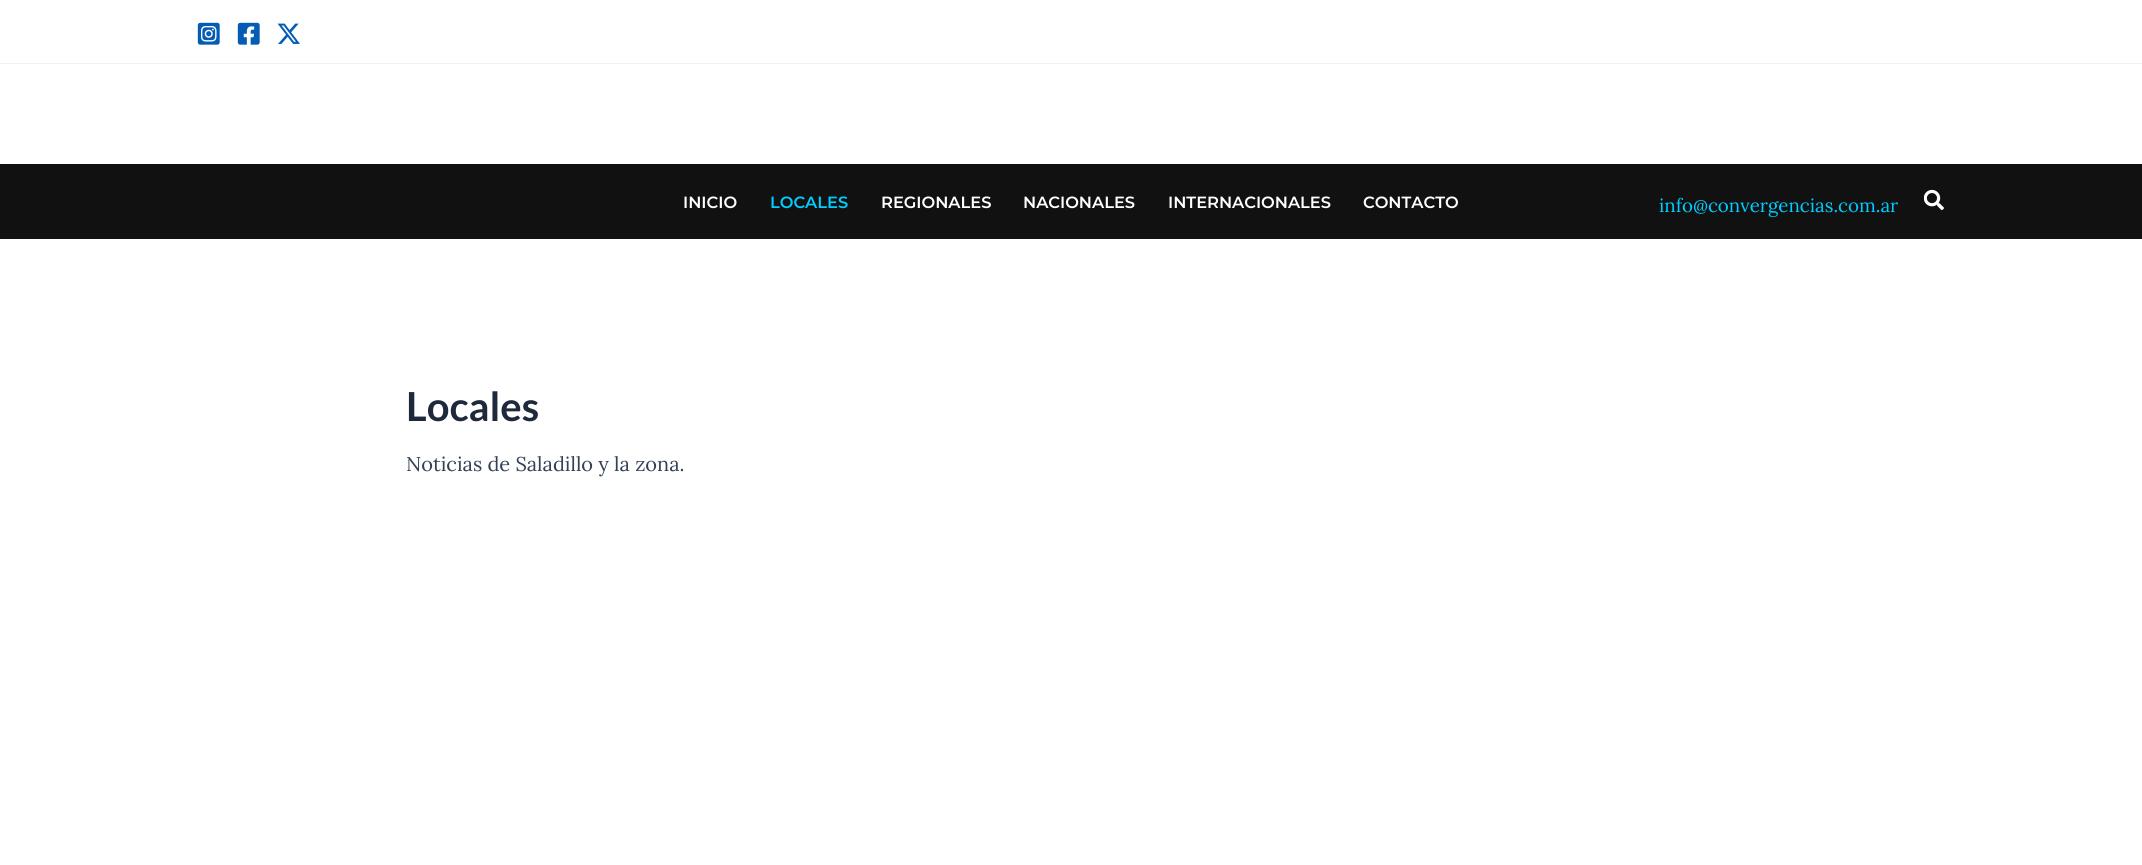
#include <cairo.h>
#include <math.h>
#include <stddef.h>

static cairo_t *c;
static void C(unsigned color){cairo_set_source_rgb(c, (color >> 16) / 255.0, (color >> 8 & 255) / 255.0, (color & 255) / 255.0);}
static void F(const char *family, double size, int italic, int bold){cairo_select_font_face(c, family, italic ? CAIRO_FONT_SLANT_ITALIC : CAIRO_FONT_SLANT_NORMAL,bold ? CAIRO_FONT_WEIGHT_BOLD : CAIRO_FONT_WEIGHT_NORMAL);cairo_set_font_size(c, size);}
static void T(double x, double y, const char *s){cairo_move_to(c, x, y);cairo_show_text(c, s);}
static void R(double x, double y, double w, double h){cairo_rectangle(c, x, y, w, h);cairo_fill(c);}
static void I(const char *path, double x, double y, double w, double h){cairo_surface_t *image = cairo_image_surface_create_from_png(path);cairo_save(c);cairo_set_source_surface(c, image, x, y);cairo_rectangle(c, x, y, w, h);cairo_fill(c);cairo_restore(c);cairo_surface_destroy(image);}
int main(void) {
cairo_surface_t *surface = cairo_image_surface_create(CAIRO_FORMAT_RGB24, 2142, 865);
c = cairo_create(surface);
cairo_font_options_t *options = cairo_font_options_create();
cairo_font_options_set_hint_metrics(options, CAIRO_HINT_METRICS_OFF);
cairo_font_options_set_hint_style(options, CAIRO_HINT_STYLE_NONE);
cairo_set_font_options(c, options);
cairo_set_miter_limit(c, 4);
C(0xffffff);
cairo_paint(c);
C(0xeff1f3);
R(0,63,2142,1);
I("1.png",197,22,23,23);
I("2.png",237,22,23,23);
I("3.png",277,23,23,21);
C(0x111111);
R(0,164,2142,75);
F("Montserrat Thin",16.25,0,0);
C(0xffffff);
T(683,208,"INICIO");
C(0x00ccff);
T(770,208,"LOCALES");
C(0xffffff);
T(881,208,"REGIONALES");
T(1023,208,"NACIONALES");
T(1168,208,"INTERNACIONALES");
T(1363,208,"CONTACTO");
F("Lora",18.75,0,0);
C(0x00ccff);
T(1659,212,"info@convergencias.com.ar");
I("4.png",1924,189,20,22);
F("Lato",40,0,1);
C(0x1e293b);
T(406,421,"Locales");
F("Lora",20,0,0);
C(0x334155);
T(406,471,"Noticias de Saladillo y la zona.");
cairo_surface_write_to_png(surface, "o.png");
cairo_font_options_destroy(options);
cairo_destroy(c);
cairo_surface_destroy(surface);
return 0;
}
